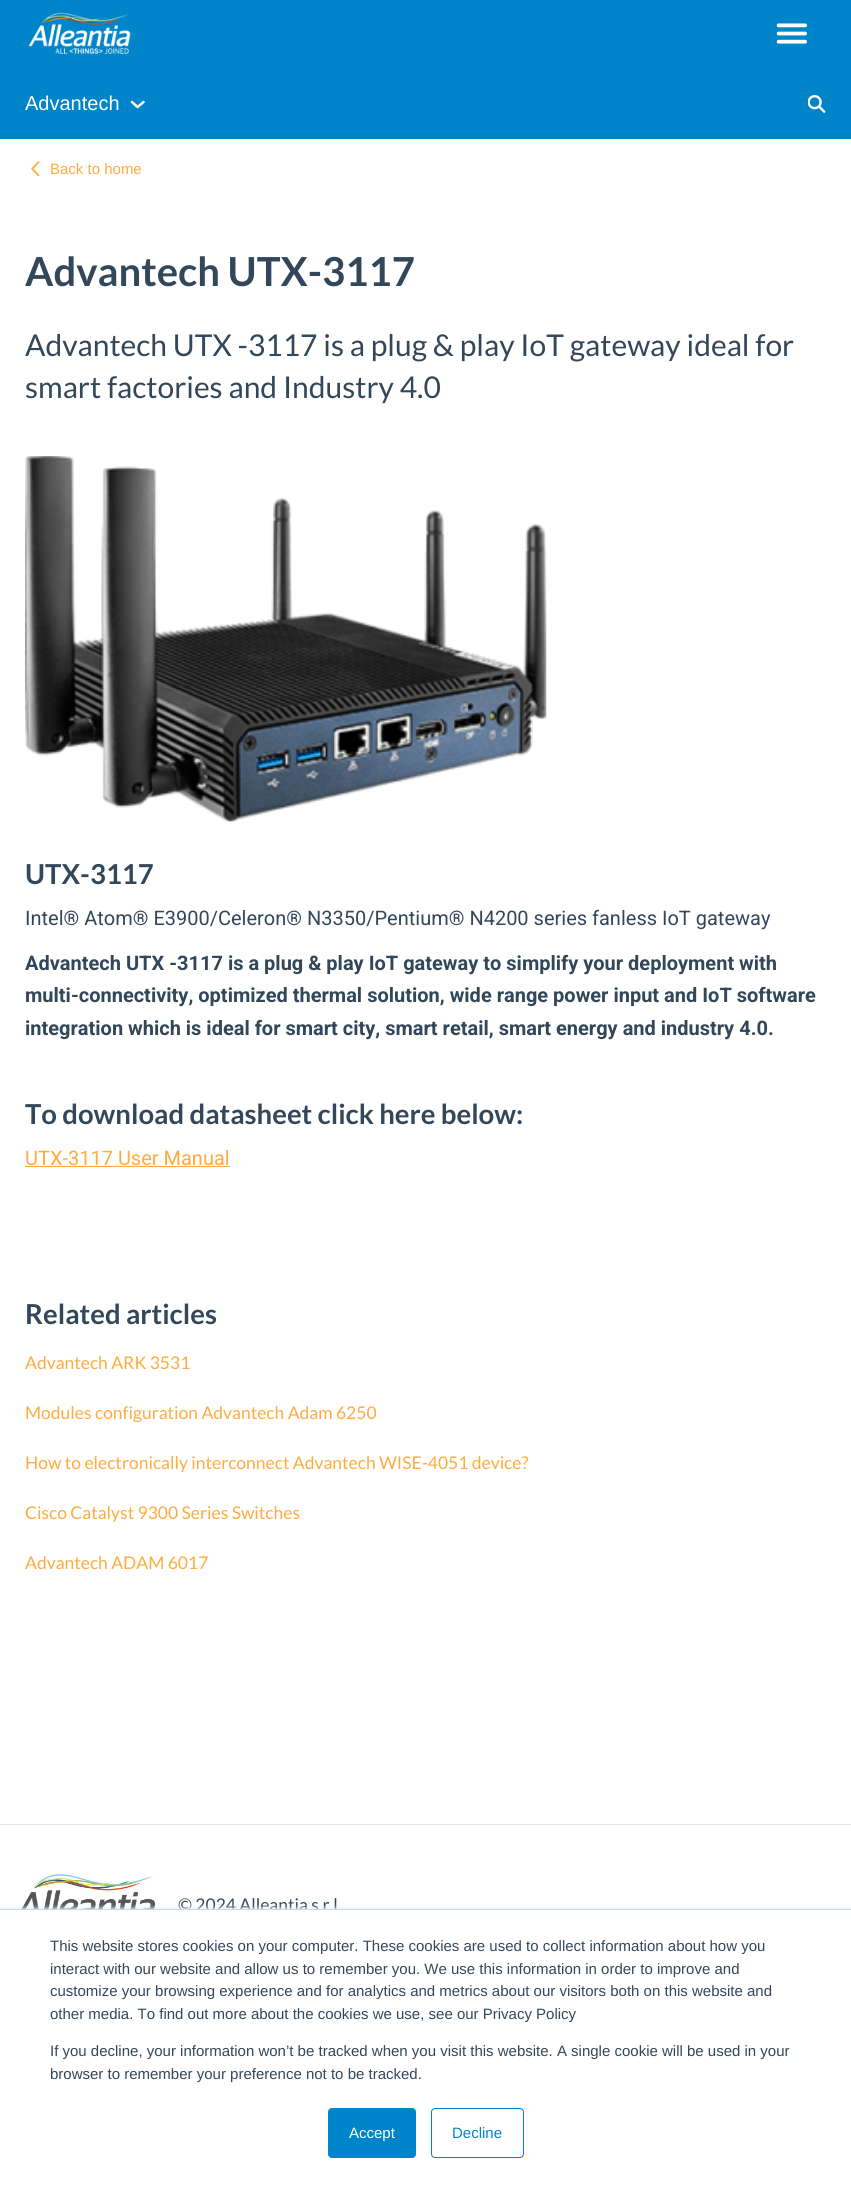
#include <cairo.h>
#include <math.h>
#include <stddef.h>

static cairo_t *c;
static void C(unsigned color){cairo_set_source_rgb(c, (color >> 16) / 255.0, (color >> 8 & 255) / 255.0, (color & 255) / 255.0);}
static void F(const char *family, double size, int italic, int bold){cairo_select_font_face(c, family, italic ? CAIRO_FONT_SLANT_ITALIC : CAIRO_FONT_SLANT_NORMAL,bold ? CAIRO_FONT_WEIGHT_BOLD : CAIRO_FONT_WEIGHT_NORMAL);cairo_set_font_size(c, size);}
static void T(double x, double y, const char *s){cairo_move_to(c, x, y);cairo_show_text(c, s);}
static void R(double x, double y, double w, double h){cairo_rectangle(c, x, y, w, h);cairo_fill(c);}
static void Q(double x, double y, double w, double h, double r){cairo_new_sub_path(c);cairo_arc(c, x + w - r, y + h - r, r, 0, M_PI / 2);cairo_arc(c, x + r, y + h - r, r, M_PI / 2, M_PI);cairo_arc(c, x + r, y + r, r, M_PI, 1.5 * M_PI);cairo_arc(c, x + w - r, y + r, r, 1.5 * M_PI, 2 * M_PI);cairo_close_path(c);}
static void S(double x, double y, double w, double h, double r, double blur, double alpha){cairo_push_group_with_content(c, CAIRO_CONTENT_ALPHA);cairo_set_operator(c, CAIRO_OPERATOR_SOURCE);for (int i = 15; i >= -15 && fmin(w, h) + blur * i / 3 > 0; i -= 2) {double e = blur * i / 6;cairo_set_source_rgba(c, 0, 0, 0, alpha * erfc((i - 1) / 8.5) / 2);Q(x - e, y - e, w + 2 * e, h + 2 * e, fmax(0, fmin(r + e + blur * .6, fmin(w, h) / 2 + e)));cairo_fill(c);}cairo_pattern_t *soft = cairo_pop_group(c);cairo_mask(c, soft);cairo_pattern_destroy(soft);}
static void I(const char *path, double x, double y, double w, double h){cairo_surface_t *image = cairo_image_surface_create_from_png(path);cairo_save(c);cairo_set_source_surface(c, image, x, y);cairo_rectangle(c, x, y, w, h);cairo_fill(c);cairo_restore(c);cairo_surface_destroy(image);}
int main(void) {
cairo_surface_t *surface = cairo_image_surface_create(CAIRO_FORMAT_RGB24, 851, 2189);
c = cairo_create(surface);
cairo_font_options_t *options = cairo_font_options_create();
cairo_font_options_set_hint_metrics(options, CAIRO_HINT_METRICS_OFF);
cairo_font_options_set_hint_style(options, CAIRO_HINT_STYLE_NONE);
cairo_set_font_options(c, options);
cairo_set_miter_limit(c, 4);
C(0xffffff);
cairo_paint(c);
C(0x0085ca);
R(0,0,851,139);
I("1.png",28,12,103,42);
I("2.png",776,23,31,21);
F("Liberation Sans",20,0,0);
C(0xffffff);
T(25,110,"Advantech");
cairo_new_path(c);
cairo_move_to(c,143.5,102);
cairo_line_to(c,137.5,107);
cairo_line_to(c,132,102);
cairo_set_line_width(c,2.5);
cairo_set_line_cap(c,CAIRO_LINE_CAP_ROUND);
cairo_set_line_join(c,CAIRO_LINE_JOIN_ROUND);
cairo_stroke(c);
I("3.png",808,95,18,18);
I("4.png",31,161,9,15);
F("Liberation Sans",15,0,0);
C(0xffab3f);
T(50,174,"Back to home");
F("Lato",40,0,1);
C(0x33475b);
T(25,286,"Advantech UTX-3117");
F("Lato",30,0,0);
T(25,356,"Advantech UTX -3117 is a plug & play IoT gateway ideal for");
T(25,398,"smart factories and Industry 4.0");
I("5.png",25,456,522,366);
F("Lato",27.5,0,1);
T(25,884,"UTX-3117");
F("Roboto",20,0,0);
T(25,925,"Intel® Atom® E3900/Celeron® N3350/Pentium® N4200 series fanless IoT gateway");
F("Roboto",20,0,1);
T(25,970,"Advantech UTX -3117 is a plug & play IoT gateway to simplify your deployment with");
T(25,1002,"multi-connectivity, optimized thermal solution, wide range power input and IoT software");
T(25,1035,"integration which is ideal for smart city, smart retail, smart energy and industry 4.0.");
F("Lato",27.5,0,1);
T(25,1124,"To download datasheet click here below:");
F("Roboto",20,0,0);
C(0xffab3f);
T(25,1165,"UTX-3117 User Manual");
R(25,1166,205,1);
F("Lato",27.5,0,1);
C(0x33475b);
T(25,1324,"Related articles");
F("Lato",17.5,0,0);
C(0xffab3f);
T(25,1369,"Advantech ARK 3531");
T(25,1419,"Modules configuration Advantech Adam 6250");
T(25,1469,"How to electronically interconnect Advantech WISE-4051 device?");
T(25,1519,"Cisco Catalyst 9300 Series Switches");
T(25,1569,"Advantech ADAM 6017");
C(0xe6e6e6);
R(0,1824,851,1);
I("6.png",21,1874,135,35);
C(0x33475b);
T(178,1911,"© 2024 Alleantia s.r.l");
C(0xeaf0f6);
S(0,1908,851,281,0,2,1);
C(0xffffff);
R(0,1910,851,279);
C(0xcbd6e2);
R(0,1909,851,1);
F("Liberation Sans",15,0,0);
C(0x33475b);
T(50,1951,"This website stores cookies on your computer. These cookies are used to collect information about how you");
T(50,1974,"interact with our website and allow us to remember you. We use this information in order to improve and");
T(50,1996,"customize your browsing experience and for analytics and metrics about our visitors both on this website and");
T(50,2019,"other media. To find out more about the cookies we use, see our Privacy Policy");
T(50,2056,"If you decline, your information won’t be tracked when you visit this website. A single cookie will be used in your");
T(50,2079,"browser to remember your preference not to be tracked.");
C(0x0085ca);
Q(328.5,2108.5,87,49,3.5);
cairo_fill_preserve(c);
cairo_set_line_width(c,1);
cairo_set_line_cap(c,CAIRO_LINE_CAP_BUTT);
cairo_set_line_join(c,CAIRO_LINE_JOIN_MITER);
cairo_stroke(c);
C(0xffffff);
T(349,2138,"Accept");
Q(431.5,2108.5,92,49,3.5);
C(0x0085ca);
cairo_stroke(c);
T(452,2138,"Decline");
cairo_surface_write_to_png(surface, "o.png");
cairo_font_options_destroy(options);
cairo_destroy(c);
cairo_surface_destroy(surface);
return 0;
}
